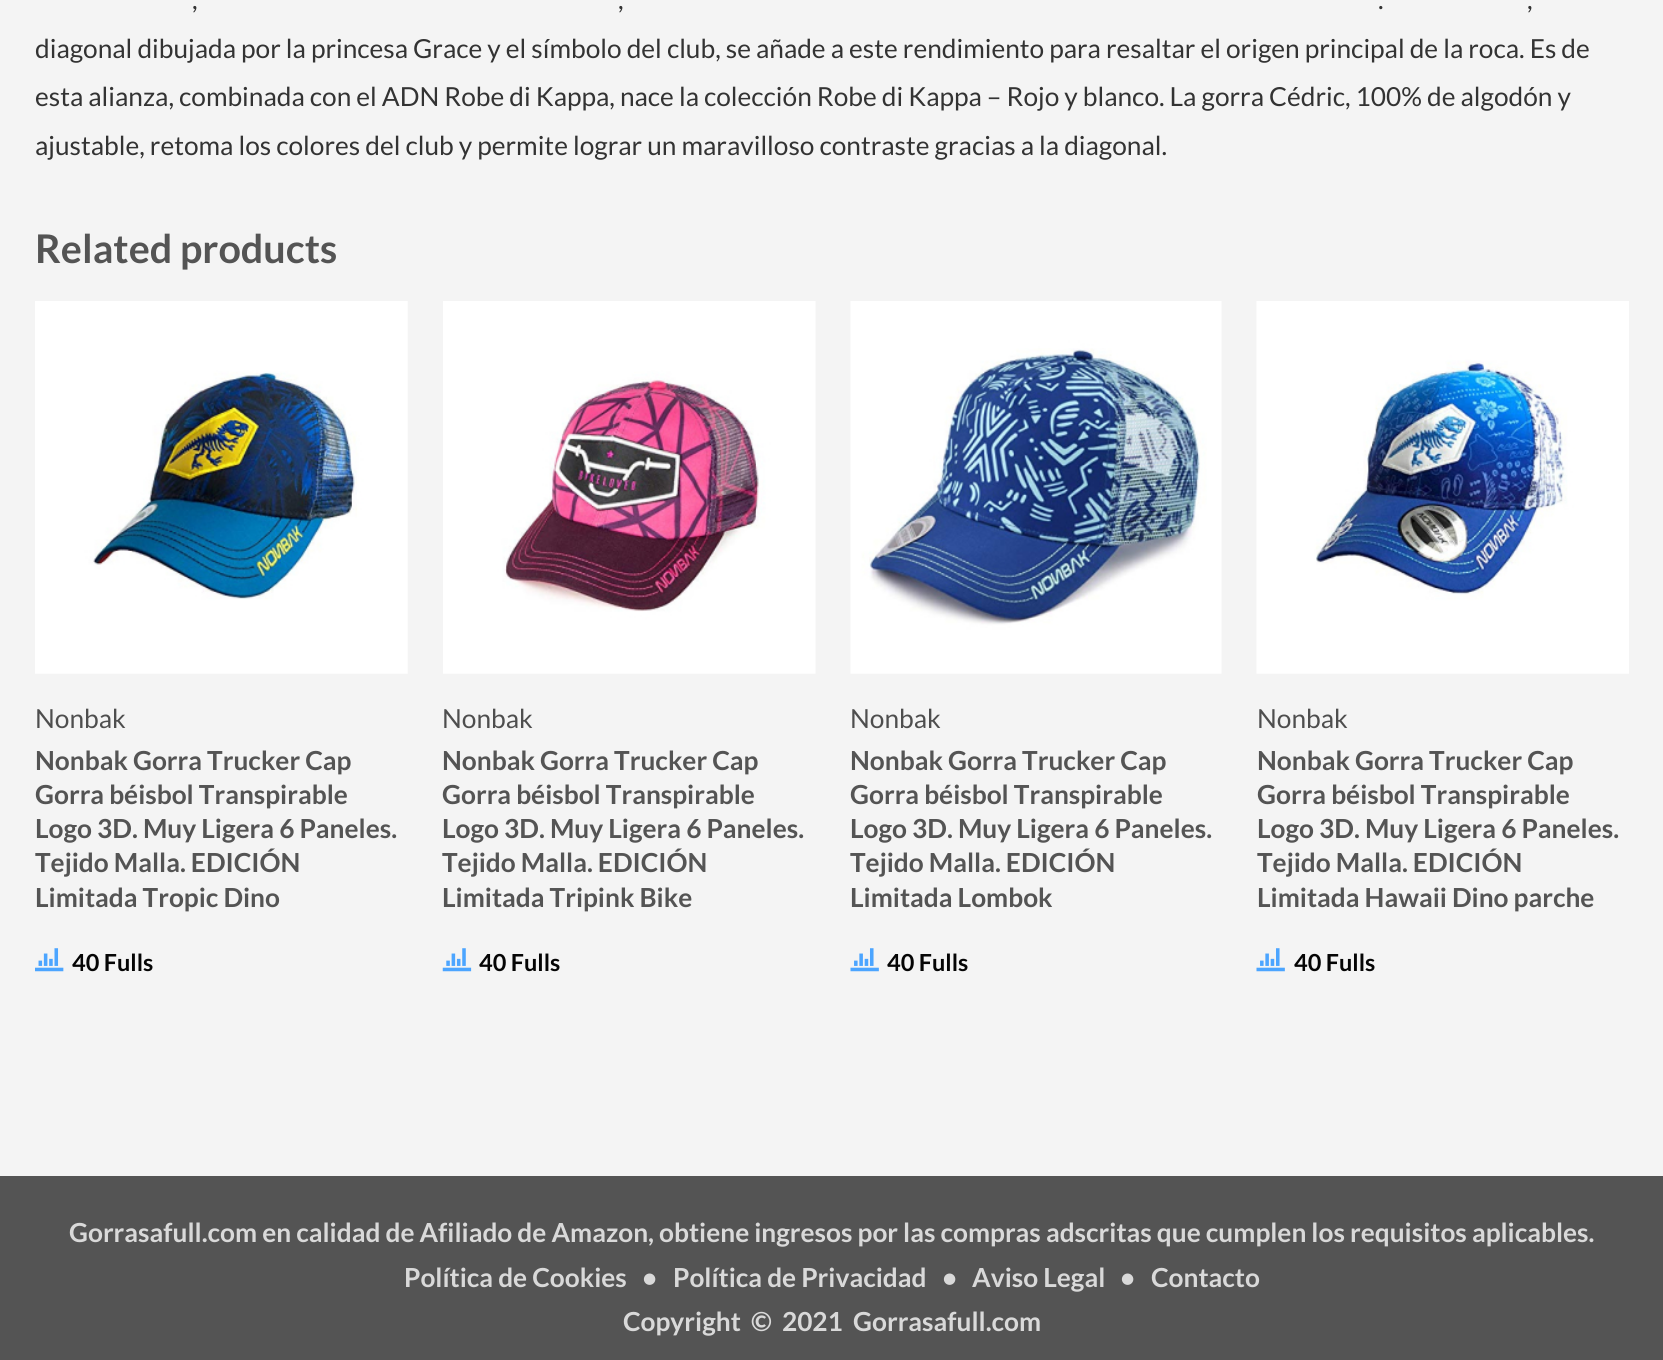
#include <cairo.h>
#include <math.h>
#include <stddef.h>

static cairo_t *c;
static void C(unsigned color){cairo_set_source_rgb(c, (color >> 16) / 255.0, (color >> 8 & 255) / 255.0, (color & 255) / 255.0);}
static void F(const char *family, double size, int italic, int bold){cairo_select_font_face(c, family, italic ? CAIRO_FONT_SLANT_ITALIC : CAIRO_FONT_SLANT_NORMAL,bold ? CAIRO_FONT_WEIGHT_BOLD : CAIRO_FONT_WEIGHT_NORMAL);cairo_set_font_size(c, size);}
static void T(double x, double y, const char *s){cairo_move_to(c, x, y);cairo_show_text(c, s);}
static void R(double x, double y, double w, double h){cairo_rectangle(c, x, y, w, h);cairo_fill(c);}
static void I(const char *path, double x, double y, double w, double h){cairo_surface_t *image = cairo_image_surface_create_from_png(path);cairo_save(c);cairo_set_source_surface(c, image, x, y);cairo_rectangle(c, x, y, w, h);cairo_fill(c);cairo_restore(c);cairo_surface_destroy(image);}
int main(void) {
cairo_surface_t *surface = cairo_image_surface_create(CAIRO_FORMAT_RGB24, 1663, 1360);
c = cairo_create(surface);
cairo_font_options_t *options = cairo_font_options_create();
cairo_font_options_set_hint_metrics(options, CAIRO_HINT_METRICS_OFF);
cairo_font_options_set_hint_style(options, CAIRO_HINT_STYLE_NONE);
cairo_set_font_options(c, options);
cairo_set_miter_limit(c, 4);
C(0xf4f4f4);
cairo_paint(c);
F("Lato",26.25,0,0);
C(0x333333);
T(192,9,",");
T(618,9,",");
T(1378,9,".");
T(1527,9,",");
T(35,58,"diagonal dibujada por la princesa Grace y el símbolo del club, se añade a este rendimiento para resaltar el origen principal de la roca. Es de");
T(35,106,"esta alianza, combinada con el ADN Robe di Kappa, nace la colección Robe di Kappa – Rojo y blanco. La gorra Cédric, 100% de algodón y");
T(35,155,"ajustable, retoma los colores del club y permite lograr un maravilloso contraste gracias a la diagonal.");
F("Lato",39.5,0,1);
C(0x545454);
T(35,263,"Related products");
I("1.png",35,301,373,373);
F("Lato",26.25,0,0);
C(0x4e4e4e);
T(35,728,"Nonbak");
F("Lato",26.25,0,1);
C(0x545454);
T(35,770,"Nonbak Gorra Trucker Cap");
T(35,804,"Gorra béisbol Transpirable");
T(35,838,"Logo 3D. Muy Ligera 6 Paneles.");
T(35,872,"Tejido Malla. EDICIÓN");
T(35,907,"Limitada Tropic Dino");
I("2.png",35,948,29,24);
F("Lato",23.5,0,1);
C(0x050505);
T(72,971,"40 Fulls");
I("3.png",443,301,373,373);
F("Lato",26.25,0,0);
C(0x4e4e4e);
T(442,728,"Nonbak");
F("Lato",26.25,0,1);
C(0x545454);
T(442,770,"Nonbak Gorra Trucker Cap");
T(442,804,"Gorra béisbol Transpirable");
T(442,838,"Logo 3D. Muy Ligera 6 Paneles.");
T(442,872,"Tejido Malla. EDICIÓN");
T(442,907,"Limitada Tripink Bike");
I("4.png",442,948,30,24);
F("Lato",23.5,0,1);
C(0x050505);
T(479,971,"40 Fulls");
I("5.png",850,301,372,373);
F("Lato",26.25,0,0);
C(0x4e4e4e);
T(850,728,"Nonbak");
F("Lato",26.25,0,1);
C(0x545454);
T(850,770,"Nonbak Gorra Trucker Cap");
T(850,804,"Gorra béisbol Transpirable");
T(850,838,"Logo 3D. Muy Ligera 6 Paneles.");
T(850,872,"Tejido Malla. EDICIÓN");
T(850,907,"Limitada Lombok");
I("6.png",850,948,29,24);
F("Lato",23.5,0,1);
C(0x050505);
T(887,971,"40 Fulls");
I("7.png",1256,301,373,373);
F("Lato",26.25,0,0);
C(0x4e4e4e);
T(1257,728,"Nonbak");
F("Lato",26.25,0,1);
C(0x545454);
T(1257,770,"Nonbak Gorra Trucker Cap");
T(1257,804,"Gorra béisbol Transpirable");
T(1257,838,"Logo 3D. Muy Ligera 6 Paneles.");
T(1257,872,"Tejido Malla. EDICIÓN");
T(1257,907,"Limitada Hawaii Dino parche");
I("6.png",1256,948,29,24);
F("Lato",23.5,0,1);
C(0x050505);
T(1294,971,"40 Fulls");
C(0x545454);
R(0,1176,1663,184);
F("Lato",26.25,0,1);
C(0xd9d9d9);
T(69,1242,"Gorrasafull.com en calidad de Afiliado de Amazon, obtiene ingresos por las compras adscritas que cumplen los requisitos aplicables.");
T(404,1287,"Política de Cookies");
T(642,1287,"•");
T(673,1287,"Política de Privacidad");
T(942,1287,"•");
T(972,1287,"Aviso Legal");
T(1120,1287,"•");
T(1151,1287,"Contacto");
T(623,1331,"Copyright  ©  2021");
T(853,1331,"Gorrasafull.com");
cairo_surface_write_to_png(surface, "o.png");
cairo_font_options_destroy(options);
cairo_destroy(c);
cairo_surface_destroy(surface);
return 0;
}
